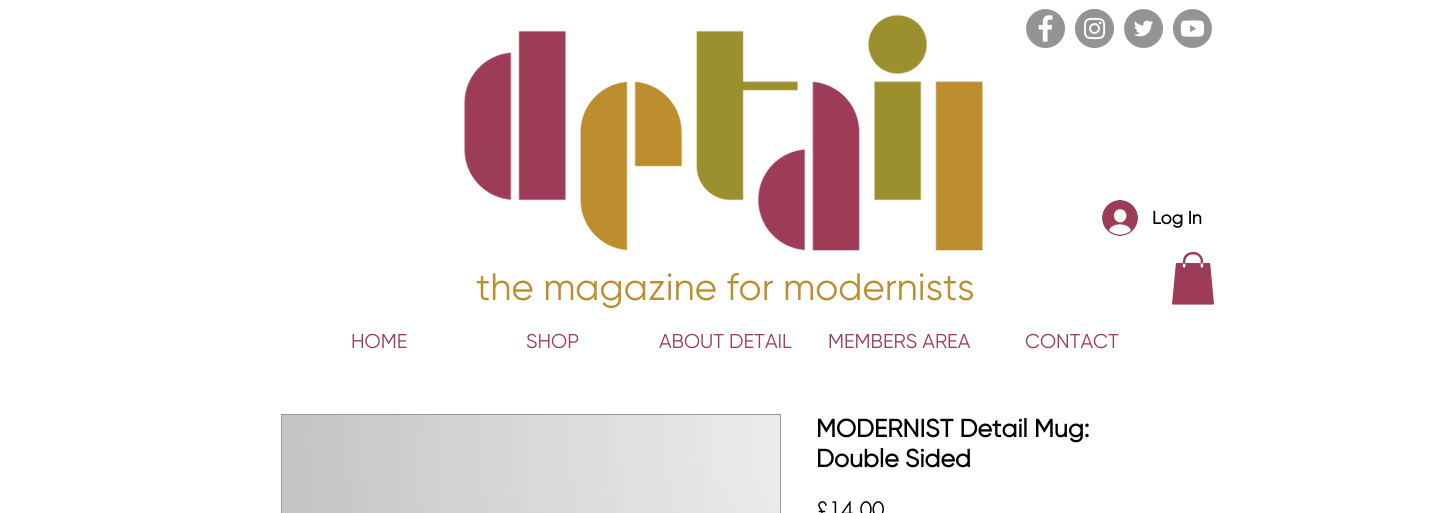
#include <cairo.h>
#include <math.h>
#include <stddef.h>

static cairo_t *c;
static void C(unsigned color){cairo_set_source_rgb(c, (color >> 16) / 255.0, (color >> 8 & 255) / 255.0, (color & 255) / 255.0);}
static void F(const char *family, double size, int italic, int bold){cairo_select_font_face(c, family, italic ? CAIRO_FONT_SLANT_ITALIC : CAIRO_FONT_SLANT_NORMAL,bold ? CAIRO_FONT_WEIGHT_BOLD : CAIRO_FONT_WEIGHT_NORMAL);cairo_set_font_size(c, size);}
static void T(double x, double y, const char *s){cairo_move_to(c, x, y);cairo_show_text(c, s);}
static void I(const char *path, double x, double y, double w, double h){cairo_surface_t *image = cairo_image_surface_create_from_png(path);cairo_save(c);cairo_set_source_surface(c, image, x, y);cairo_rectangle(c, x, y, w, h);cairo_fill(c);cairo_restore(c);cairo_surface_destroy(image);}
int main(void) {
cairo_surface_t *surface = cairo_image_surface_create(CAIRO_FORMAT_RGB24, 1451, 513);
c = cairo_create(surface);
cairo_font_options_t *options = cairo_font_options_create();
cairo_font_options_set_hint_metrics(options, CAIRO_HINT_METRICS_OFF);
cairo_font_options_set_hint_style(options, CAIRO_HINT_STYLE_NONE);
cairo_set_font_options(c, options);
cairo_set_miter_limit(c, 4);
C(0xffffff);
cairo_paint(c);
I("1.png",464,14,519,237);
I("2.png",1026,9,39,39);
I("3.png",1075,9,39,39);
I("4.png",1124,9,39,39);
I("5.png",1173,9,39,39);
I("6.png",1102,200,36,36);
F("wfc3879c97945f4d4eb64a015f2",18,0,1);
C(0x000000);
T(1152,224,"Log In");
F("wfc3879c97945f4d4eb64a015f2",38,0,0);
C(0xbc8e2e);
T(476,300,"the magazine for modernists");
I("7.png",1172,252,42,53);
F("wfc3879c97945f4d4eb64a015f2",20,0,0);
C(0x9c3c58);
T(351,348,"HOME");
T(526,348,"SHOP");
T(659,348,"ABOUT DETAIL");
T(828,348,"MEMBERS AREA");
T(1025,348,"CONTACT");
cairo_rectangle(c,281.5,414.5,499,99);
C(0x999999);
cairo_set_line_width(c,1);
cairo_stroke(c);
I("8.png",282,415,498,98);
F("wfc3879c97945f4d4eb64a015f2",25,0,1);
C(0x000000);
T(816,437,"MODERNIST Detail Mug:");
T(816,467,"Double Sided");
F("futura",20,0,1);
T(816,517,"£14.00");
cairo_surface_write_to_png(surface, "o.png");
cairo_font_options_destroy(options);
cairo_destroy(c);
cairo_surface_destroy(surface);
return 0;
}
